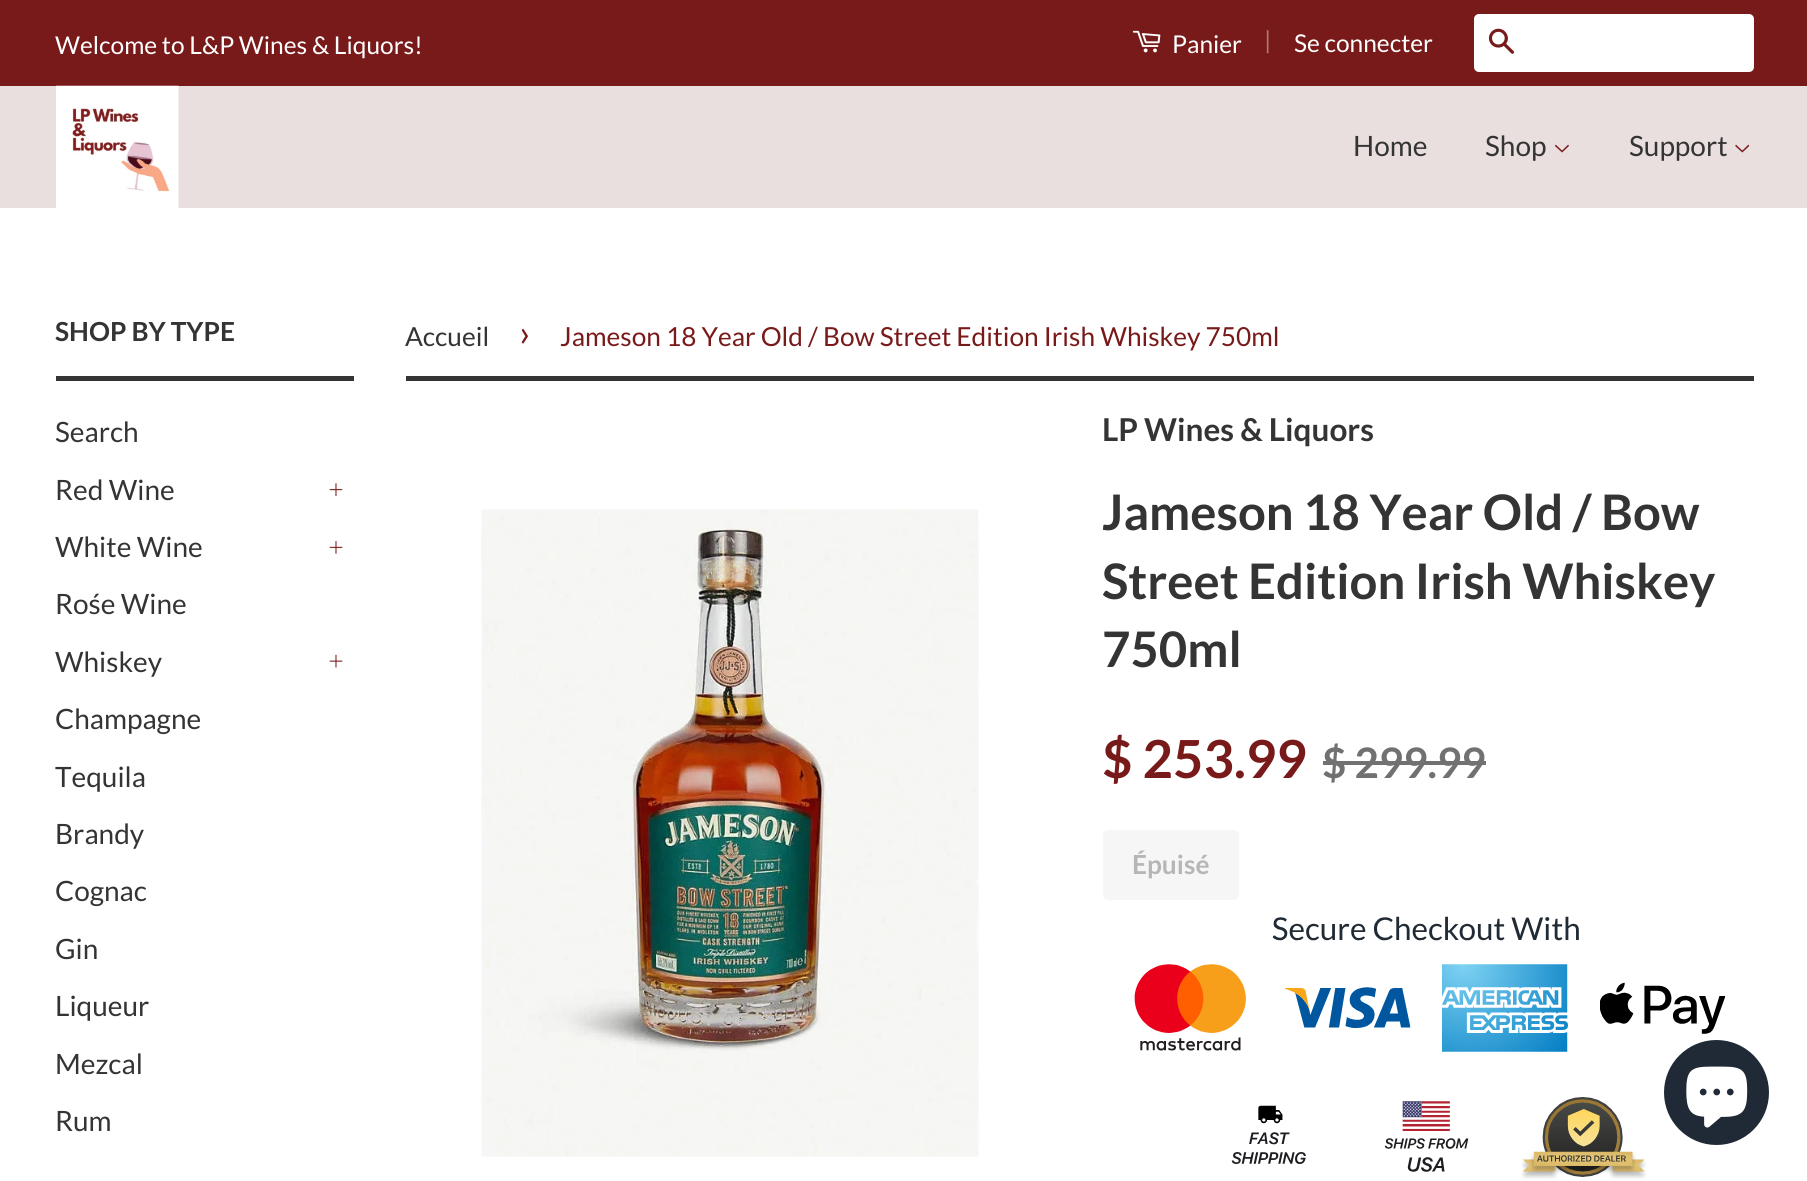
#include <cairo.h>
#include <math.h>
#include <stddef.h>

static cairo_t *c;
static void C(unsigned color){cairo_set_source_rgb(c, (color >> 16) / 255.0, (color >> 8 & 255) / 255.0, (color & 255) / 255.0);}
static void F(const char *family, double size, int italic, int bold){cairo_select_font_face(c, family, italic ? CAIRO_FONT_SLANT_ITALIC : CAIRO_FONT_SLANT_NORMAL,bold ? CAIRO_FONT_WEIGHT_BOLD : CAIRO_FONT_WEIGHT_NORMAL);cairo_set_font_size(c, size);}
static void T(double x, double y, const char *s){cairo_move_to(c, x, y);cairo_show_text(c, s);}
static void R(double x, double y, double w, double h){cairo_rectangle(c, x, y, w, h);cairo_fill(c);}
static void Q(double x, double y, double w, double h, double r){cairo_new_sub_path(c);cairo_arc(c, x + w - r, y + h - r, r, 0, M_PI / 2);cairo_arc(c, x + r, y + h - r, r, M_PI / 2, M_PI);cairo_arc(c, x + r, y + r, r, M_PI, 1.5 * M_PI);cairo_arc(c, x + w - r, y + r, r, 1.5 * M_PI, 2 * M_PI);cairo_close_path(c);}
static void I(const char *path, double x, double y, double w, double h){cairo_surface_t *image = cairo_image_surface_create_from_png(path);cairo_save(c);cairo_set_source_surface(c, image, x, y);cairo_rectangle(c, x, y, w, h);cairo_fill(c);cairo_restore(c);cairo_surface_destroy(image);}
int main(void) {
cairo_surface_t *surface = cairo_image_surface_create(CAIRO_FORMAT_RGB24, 1807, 1181);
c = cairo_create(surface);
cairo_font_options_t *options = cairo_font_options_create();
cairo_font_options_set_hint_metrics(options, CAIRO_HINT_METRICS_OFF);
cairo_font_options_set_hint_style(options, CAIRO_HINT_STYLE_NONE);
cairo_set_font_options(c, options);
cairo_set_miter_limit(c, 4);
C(0xffffff);
cairo_paint(c);
C(0x791a1a);
R(0,0,1807,86);
F("Lato",24.5,0,0);
C(0xffffff);
T(55,54,"Welcome to L&P Wines & Liquors!");
I("1.png",1132,30,29,23);
T(1172,53,"Panier");
C(0xaf7676);
T(1264,49,"|");
C(0xffffff);
T(1294,52,"Se connecter");
Q(1474,14,280,58,5);
cairo_fill(c);
I("2.png",1488,28,27,26);
C(0xeadfdf);
R(0,86,1807,122);
I("3.png",56,85,123,123);
F("Lato",28,0,0);
C(0x343434);
T(1353,156,"Home");
T(1485,156,"Shop");
I("4.png",1555,144,14,9);
T(1629,156,"Support");
I("5.png",1735,144,15,9);
R(56,376,298,5);
F("Lato",26.25,0,1);
T(55,341,"SHOP BY TYPE");
F("Lato",28,0,0);
T(55,442,"Search");
T(55,500,"Red Wine");
I("6.png",329,483,14,13);
T(55,557,"White Wine");
I("7.png",329,541,14,13);
T(55,614,"Rośe Wine");
T(55,672,"Whiskey");
I("8.png",329,654,14,14);
T(55,729,"Champagne");
T(55,787,"Tequila");
T(55,844,"Brandy");
T(55,901,"Cognac");
T(55,959,"Gin");
T(55,1016,"Liqueur");
T(55,1074,"Mezcal");
T(55,1131,"Rum");
R(406,376,1348,5);
F("Lato",26.25,0,0);
T(405,346,"Accueil");
F("Lato",37,0,0);
C(0x791a1a);
T(519,346,"›");
F("Lato",26.25,0,0);
T(560,346,"Jameson 18 Year Old / Bow Street Edition Irish Whiskey 750ml");
I("9.png",481,509,498,648);
F("Lato",31.5,0,1);
C(0x343434);
T(1102,441,"LP Wines & Liquors");
F("Lato",49,0,1);
T(1102,530,"Jameson 18 Year Old / Bow");
T(1102,599,"Street Edition Irish Whiskey");
T(1102,667,"750ml");
F("Lato",52.5,0,1);
C(0x791a1a);
T(1102,778,"$ 253.99");
F("Lato",42,0,1);
C(0x717171);
T(1322,778,"$ 299.99");
R(1323,761,163,4);
C(0xf6f6f6);
Q(1103,830,136,70,5);
cairo_fill(c);
F("Lato",26.25,0,1);
C(0xb6b6b6);
T(1132,874,"Épuisé");
I("10.png",1134,916,592,263);
C(0x202a36);
cairo_arc(c,1716.5,1092.5,52.5,0,2 * M_PI);
cairo_fill(c);
I("11.png",1686,1066,62,62);
cairo_surface_write_to_png(surface, "o.png");
cairo_font_options_destroy(options);
cairo_destroy(c);
cairo_surface_destroy(surface);
return 0;
}
